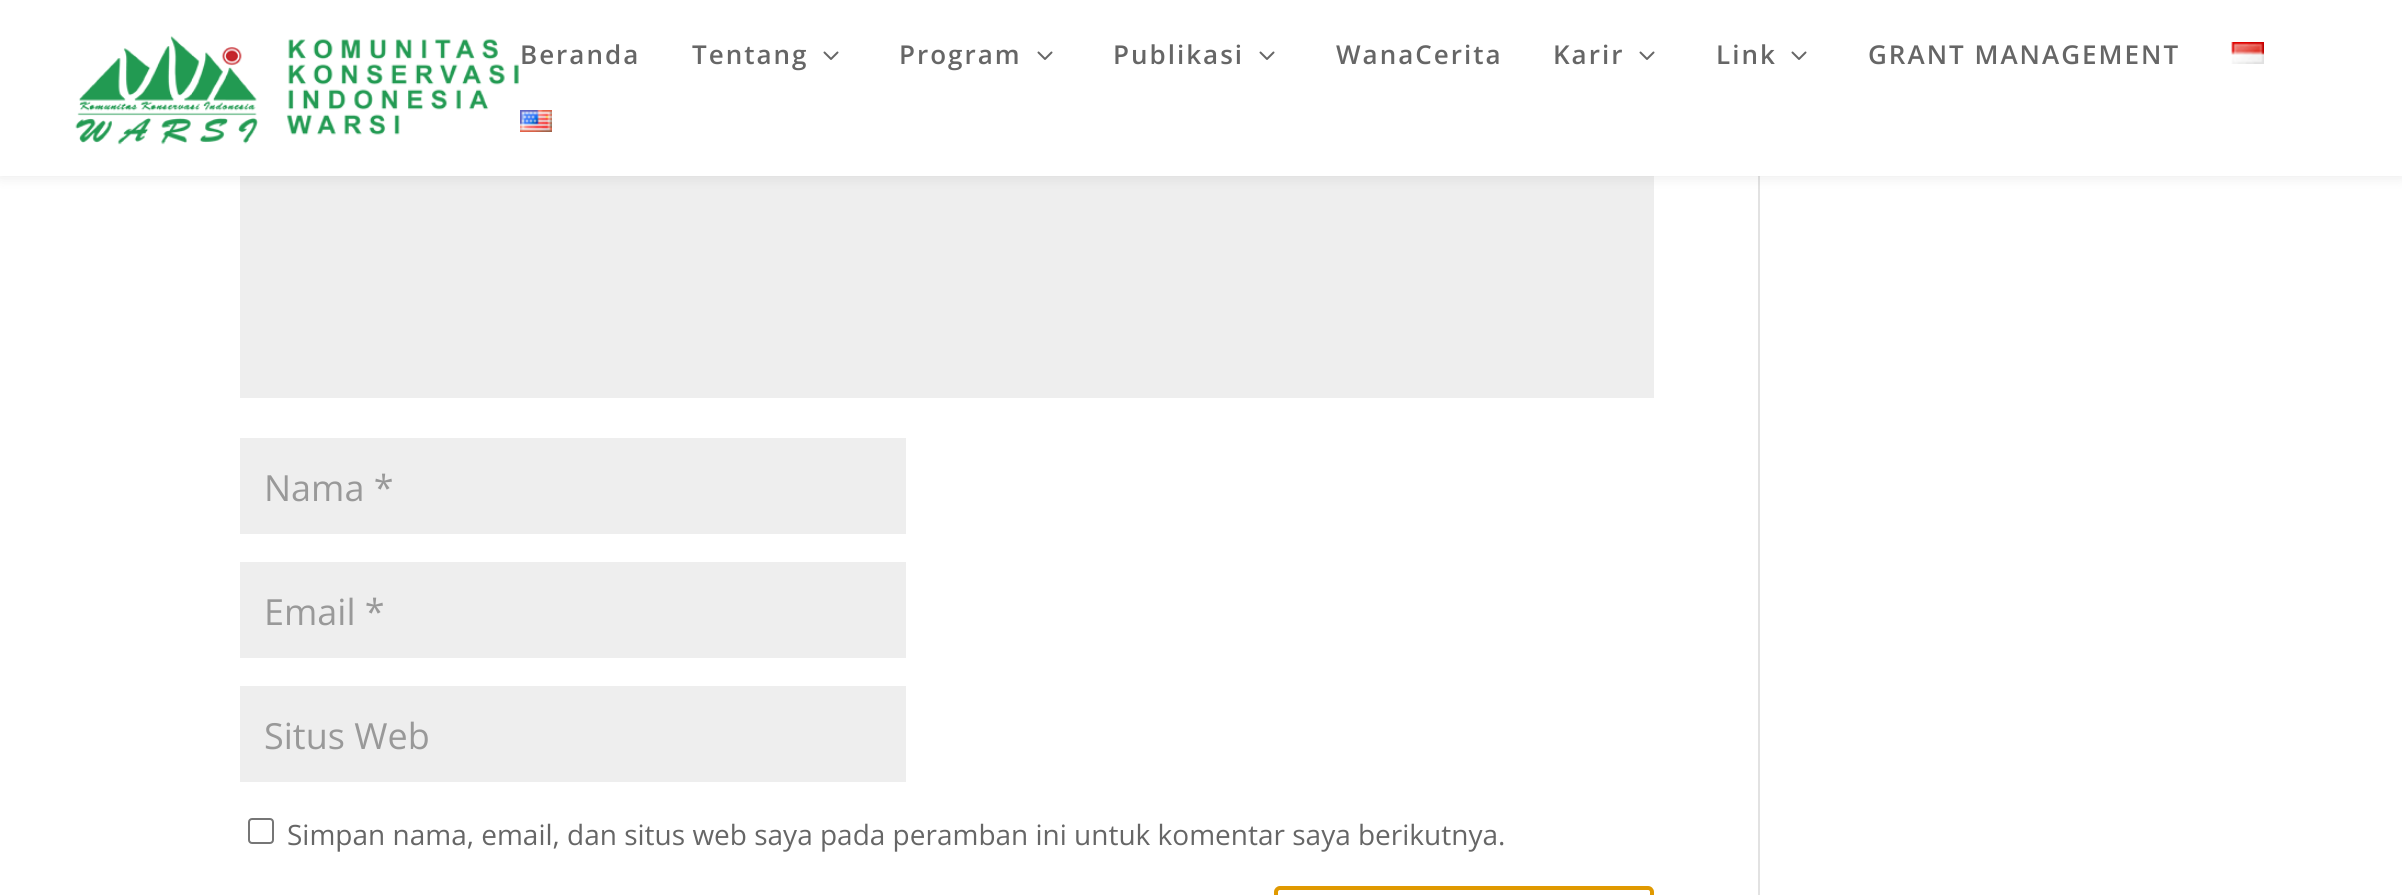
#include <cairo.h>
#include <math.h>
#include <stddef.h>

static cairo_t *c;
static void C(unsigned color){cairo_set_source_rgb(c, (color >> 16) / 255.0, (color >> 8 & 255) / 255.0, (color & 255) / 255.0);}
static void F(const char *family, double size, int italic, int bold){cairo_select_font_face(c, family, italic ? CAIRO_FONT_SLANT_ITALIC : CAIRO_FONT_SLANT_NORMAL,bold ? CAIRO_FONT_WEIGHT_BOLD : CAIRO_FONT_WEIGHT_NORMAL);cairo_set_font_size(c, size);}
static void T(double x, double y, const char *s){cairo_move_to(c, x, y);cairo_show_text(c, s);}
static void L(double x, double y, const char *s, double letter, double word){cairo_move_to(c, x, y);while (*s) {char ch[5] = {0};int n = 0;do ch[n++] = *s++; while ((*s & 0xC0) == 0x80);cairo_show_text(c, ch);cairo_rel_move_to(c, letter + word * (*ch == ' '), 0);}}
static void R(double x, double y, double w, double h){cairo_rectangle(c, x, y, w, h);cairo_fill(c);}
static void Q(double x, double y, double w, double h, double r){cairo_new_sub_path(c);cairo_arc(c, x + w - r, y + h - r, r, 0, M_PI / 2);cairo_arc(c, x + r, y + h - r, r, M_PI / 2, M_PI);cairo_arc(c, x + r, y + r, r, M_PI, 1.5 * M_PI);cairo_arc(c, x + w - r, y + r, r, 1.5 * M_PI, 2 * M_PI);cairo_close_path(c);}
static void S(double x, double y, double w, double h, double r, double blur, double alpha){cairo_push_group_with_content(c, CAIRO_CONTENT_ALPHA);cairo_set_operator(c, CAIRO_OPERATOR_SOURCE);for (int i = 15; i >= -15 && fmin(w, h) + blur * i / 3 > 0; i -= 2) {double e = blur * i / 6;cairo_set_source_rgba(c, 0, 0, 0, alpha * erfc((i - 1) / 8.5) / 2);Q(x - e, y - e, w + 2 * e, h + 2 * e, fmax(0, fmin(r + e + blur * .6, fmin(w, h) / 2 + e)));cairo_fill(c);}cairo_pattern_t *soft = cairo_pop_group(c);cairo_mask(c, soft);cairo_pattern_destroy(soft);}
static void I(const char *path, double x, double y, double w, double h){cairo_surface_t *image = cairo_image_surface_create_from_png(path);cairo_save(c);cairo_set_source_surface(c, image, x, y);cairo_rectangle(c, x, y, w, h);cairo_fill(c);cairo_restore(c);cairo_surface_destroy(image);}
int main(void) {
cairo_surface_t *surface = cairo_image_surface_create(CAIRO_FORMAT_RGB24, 2402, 895);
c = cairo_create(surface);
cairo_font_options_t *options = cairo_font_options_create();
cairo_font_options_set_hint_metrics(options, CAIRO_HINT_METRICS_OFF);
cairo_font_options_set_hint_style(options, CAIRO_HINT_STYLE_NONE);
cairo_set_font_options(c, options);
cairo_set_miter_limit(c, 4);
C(0xffffff);
cairo_paint(c);
C(0xeeeeee);
R(240,176,1414,222);
C(0xe2e2e2);
R(1758,176,2,719);
C(0x000000);
S(0,0,2402,176,0,7,.1);
C(0xffffff);
R(0,0,2402,176);
I("1.png",75,36,444,109);
F("Open Sans SemiBold",26,0,0);
C(0x666666);
L(520,64,"Beranda",2,0);
L(692,64,"Tentang",2,0);
I("2.png",823,51,16,9);
L(899,64,"Program",2,0);
I("2.png",1037,51,16,9);
L(1113,64,"Publikasi",2,0);
I("2.png",1259,51,16,9);
L(1336,64,"WanaCerita",2,0);
L(1553,64,"Karir",2,0);
I("2.png",1639,51,16,9);
L(1716,64,"Link",2,0);
I("2.png",1791,51,16,9);
L(1868,64,"GRANT MANAGEMENT",2,0);
I("3.png",2231,42,33,22);
I("4.png",520,110,32,22);
C(0xeeeeee);
R(240,438,666,96);
F("Open Sans",36,0,0);
C(0x999999);
T(264,501,"Nama *");
C(0xeeeeee);
R(240,562,666,96);
C(0x999999);
T(264,625,"Email *");
C(0xeeeeee);
R(240,686,666,96);
C(0x999999);
T(264,749,"Situs Web");
Q(249,819,24,24,3);
C(0x767676);
cairo_stroke(c);
F("Open Sans",28,0,0);
C(0x666666);
T(287,845,"Simpan nama, email, dan situs web saya pada peramban ini untuk komentar saya berikutnya.");
Q(1276,888,376,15,4);
C(0xe09900);
cairo_set_line_width(c,4);
cairo_stroke(c);
cairo_surface_write_to_png(surface, "o.png");
cairo_font_options_destroy(options);
cairo_destroy(c);
cairo_surface_destroy(surface);
return 0;
}
